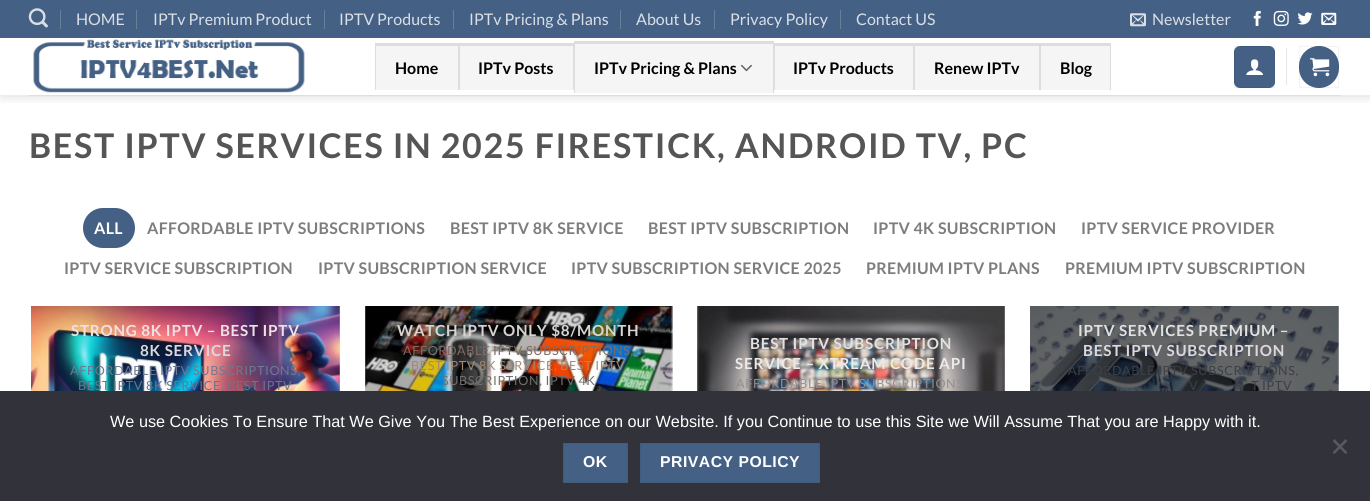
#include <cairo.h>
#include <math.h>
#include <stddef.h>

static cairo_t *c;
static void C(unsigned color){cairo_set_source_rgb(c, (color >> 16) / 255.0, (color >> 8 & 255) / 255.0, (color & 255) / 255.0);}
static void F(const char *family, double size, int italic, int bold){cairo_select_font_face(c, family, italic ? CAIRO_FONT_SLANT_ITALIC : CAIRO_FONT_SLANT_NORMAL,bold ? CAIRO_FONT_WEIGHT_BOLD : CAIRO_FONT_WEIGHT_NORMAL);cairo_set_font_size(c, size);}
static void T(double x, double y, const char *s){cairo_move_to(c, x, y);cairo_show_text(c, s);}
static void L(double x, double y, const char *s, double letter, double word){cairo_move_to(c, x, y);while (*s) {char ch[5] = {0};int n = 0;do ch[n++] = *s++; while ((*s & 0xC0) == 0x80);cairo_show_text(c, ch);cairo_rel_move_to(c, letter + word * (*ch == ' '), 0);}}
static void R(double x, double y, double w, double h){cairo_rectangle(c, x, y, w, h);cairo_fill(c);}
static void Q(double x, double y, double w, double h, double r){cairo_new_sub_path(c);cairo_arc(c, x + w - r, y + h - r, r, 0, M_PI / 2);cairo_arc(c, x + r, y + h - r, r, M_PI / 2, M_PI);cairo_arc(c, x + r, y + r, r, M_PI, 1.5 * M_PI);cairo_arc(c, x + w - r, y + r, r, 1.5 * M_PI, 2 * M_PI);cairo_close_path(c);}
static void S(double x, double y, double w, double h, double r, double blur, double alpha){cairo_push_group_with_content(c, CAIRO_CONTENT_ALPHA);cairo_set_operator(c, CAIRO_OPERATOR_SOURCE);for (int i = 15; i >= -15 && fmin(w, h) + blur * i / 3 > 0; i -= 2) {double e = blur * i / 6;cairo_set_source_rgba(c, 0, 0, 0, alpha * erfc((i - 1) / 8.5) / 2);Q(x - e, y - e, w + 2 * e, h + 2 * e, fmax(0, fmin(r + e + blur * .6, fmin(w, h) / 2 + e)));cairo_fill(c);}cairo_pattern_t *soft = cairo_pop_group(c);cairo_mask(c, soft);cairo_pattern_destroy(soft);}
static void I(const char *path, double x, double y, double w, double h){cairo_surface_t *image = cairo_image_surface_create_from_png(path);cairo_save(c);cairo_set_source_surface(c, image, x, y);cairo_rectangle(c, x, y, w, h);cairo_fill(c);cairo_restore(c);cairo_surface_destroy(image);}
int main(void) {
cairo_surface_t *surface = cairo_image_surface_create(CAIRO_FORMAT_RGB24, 1370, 501);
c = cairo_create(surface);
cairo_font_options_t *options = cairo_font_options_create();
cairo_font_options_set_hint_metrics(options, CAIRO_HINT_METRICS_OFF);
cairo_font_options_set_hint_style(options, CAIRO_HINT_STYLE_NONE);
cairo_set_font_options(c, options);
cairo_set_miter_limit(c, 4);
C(0xffffff);
cairo_paint(c);
cairo_save(c);
cairo_rectangle(c,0,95,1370,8);
cairo_clip(c);
C(0x000000);
S(1,1,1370,95,0,6,.15);
cairo_restore(c);
C(0x446084);
R(0,0,1370,38);
I("1.png",28,8,20,20);
C(0x69809d);
R(60,10,1,19);
F("Lato",16,0,0);
C(0xdadfe6);
T(76,25,"HOME");
C(0x69809d);
R(136,10,1,19);
C(0xdadfe6);
T(153,25,"IPTv Premium Product");
C(0x69809d);
R(324,10,1,19);
C(0xdadfe6);
T(339,25,"IPTV Products");
C(0x69809d);
R(453,10,1,19);
C(0xdadfe6);
T(469,25,"IPTv Pricing & Plans");
C(0x69809d);
R(620,10,1,19);
C(0xdadfe6);
T(636,25,"About Us");
C(0x69809d);
R(714,10,1,19);
C(0xdadfe6);
T(730,25,"Privacy Policy");
C(0x69809d);
R(840,10,1,19);
C(0xdadfe6);
T(856,25,"Contact US");
I("2.png",1130,13,16,14);
T(1152,25,"Newsletter");
I("3.png",1253,10,8,16);
I("4.png",1273,10,16,16);
I("5.png",1297,12,16,13);
I("6.png",1321,12,16,13);
I("7.png",33,39,272,54);
C(0xf5f5f5);
R(376,46,82,44);
C(0xdddddd);
R(375,43,199,3);
R(458,43,2,47);
R(375,43,1,47);
F("Lato",16,0,1);
C(0x000000);
T(395,74,"Home");
C(0xf5f5f5);
R(460,46,113,44);
C(0xdddddd);
R(573,43,1,47);
C(0x000000);
T(478,74,"IPTv Posts");
C(0xf5f5f5);
R(575,44,198,49);
C(0xdddddd);
R(574,41,200,3);
R(773,41,1,52);
R(574,41,1,52);
C(0x000000);
T(594,74,"IPTv Pricing & Plans");
I("8.png",740,64,12,8);
C(0xf5f5f5);
R(775,46,138,44);
C(0xdddddd);
R(774,43,337,3);
R(913,43,2,47);
R(774,43,1,47);
C(0x000000);
T(793,74,"IPTv Products");
C(0xf5f5f5);
R(915,46,124,44);
C(0xdddddd);
R(1039,43,2,47);
C(0x000000);
T(934,74,"Renew IPTv");
C(0xf5f5f5);
R(1041,46,69,44);
C(0xdddddd);
R(1110,43,1,47);
C(0x000000);
T(1060,74,"Blog");
C(0x446084);
Q(1234,46,41,42,6);
cairo_fill(c);
cairo_rectangle(c,1234.5,46.5,40,41);
cairo_set_source_rgba(c,0,0,0,0.05);
cairo_set_line_width(c,1);
cairo_stroke(c);
I("9.png",1246,59,17,16);
C(0xe6e6e6);
R(1286,48,1,37);
C(0x446084);
Q(1299,46,40,42,20);
cairo_fill(c);
cairo_rectangle(c,1299.5,46.5,39,41);
cairo_set_source_rgba(c,0,0,0,0.05);
cairo_stroke(c);
I("10.png",1310,58,20,19);
C(0xdfdfdf);
R(29,95,1312,1);
F("Lato",34,0,1);
C(0x555555);
L(29,158,"BEST IPTV SERVICES IN 2025 FIRESTICK, ANDROID TV, PC",1.7,0);
C(0x446084);
Q(83,208,52,40,20);
cairo_fill(c);
F("Lato",16,0,1);
C(0xffffff);
L(94,234,"ALL",.3,0);
C(0x7d7d7d);
L(147,234,"AFFORDABLE IPTV SUBSCRIPTIONS",.3,0);
L(450,234,"BEST IPTV 8K SERVICE",.3,0);
L(648,234,"BEST IPTV SUBSCRIPTION",.3,0);
L(873,234,"IPTV 4K SUBSCRIPTION",.3,0);
L(1081,234,"IPTV SERVICE PROVIDER",.3,0);
L(64,274,"IPTV SERVICE SUBSCRIPTION",.3,0);
L(318,274,"IPTV SUBSCRIPTION SERVICE",.3,0);
L(571,274,"IPTV SUBSCRIPTION SERVICE 2025",.3,0);
L(866,274,"PREMIUM IPTV PLANS",.3,0);
L(1065,274,"PREMIUM IPTV SUBSCRIPTION",.3,0);
I("11.png",31,306,309,85);
F("Lato",15.25,0,1);
C(0xefe0e3);
L(71,336,"STRONG 8K IPTV – BEST IPTV",.75,0);
C(0xdcd8de);
L(140,356,"8K SERVICE",.75,0);
F("Lato",12.6,0,0);
C(0x6d7992);
L(70,375,"AFFORDABLE IPTV SUBSCRIPTIONS,",.6,0);
C(0x66778f);
L(78,390,"BEST IPTV 8K SERVICE, BEST IPTV",.6,0);
I("12.png",365,306,308,85);
F("Lato",15.25,0,1);
C(0xd5d5d3);
L(397,336,"WATCH IPTV ONLY $8/MONTH",.75,0);
F("Lato",12.6,0,0);
C(0x806a66);
L(403,355,"AFFORDABLE IPTV SUBSCRIPTIONS,",.6,0);
C(0xa28974);
L(411,370,"BEST IPTV 8K SERVICE, BEST IPTV",.6,0);
C(0x716f6e);
L(442,385,"SUBSCRIPTION, IPTV 4K",.6,0);
I("13.png",697,306,308,85);
F("Lato",15.25,0,1);
C(0xe2e1e1);
L(750,349,"BEST IPTV SUBSCRIPTION",.75,0);
C(0xebeae9);
L(735,369,"SERVICE – XTREAM CODE API",.75,0);
F("Lato",12.6,0,0);
C(0x918f93);
L(736,388,"AFFORDABLE IPTV SUBSCRIPTIONS",.6,0);
I("14.png",1030,306,309,85);
F("Lato",15.25,0,1);
C(0xe2e1e1);
L(1078,336,"IPTV SERVICES PREMIUM –",.75,0);
C(0xdcd8de);
L(1083,356,"BEST IPTV SUBSCRIPTION",.75,0);
F("Lato",12.6,0,0);
C(0x3b4046);
L(1068,375,"AFFORDABLE IPTV SUBSCRIPTIONS,",.6,0);
L(1189,390,"V",.6,0);
L(1251,390,"T IPTV",.6,0);
C(0x32323a);
R(0,391,1370,110);
F("Liberation Sans",16.25,0,0);
C(0xffffff);
T(110,427,"We use Cookies To Ensure That We Give You The Best Experience on our Website. If you Continue to use this Site we Will Assume That you are Happy with it.");
C(0x59595d);
cairo_new_path(c);
cairo_move_to(c,1345.5,439);
cairo_line_to(c,1347.5,441);
cairo_line_to(c,1334.5,454);
cairo_line_to(c,1332.5,452.5);
cairo_close_path(c);
cairo_fill(c);
cairo_new_path(c);
cairo_move_to(c,1332.5,441);
cairo_line_to(c,1334.5,439);
cairo_line_to(c,1347.5,452.5);
cairo_line_to(c,1345.5,454);
cairo_close_path(c);
cairo_fill(c);
C(0x446084);
cairo_rectangle(c,563.5,443.5,64,39);
cairo_fill_preserve(c);
C(0x415b7d);
cairo_stroke(c);
F("Liberation Sans",15.75,0,1);
C(0xffffff);
L(583,467,"OK",.5,0);
C(0x446084);
cairo_rectangle(c,640.5,443.5,179,39);
cairo_fill_preserve(c);
C(0x415b7d);
cairo_stroke(c);
C(0xffffff);
L(660,467,"PRIVACY POLICY",.5,0);
cairo_surface_write_to_png(surface, "o.png");
cairo_font_options_destroy(options);
cairo_destroy(c);
cairo_surface_destroy(surface);
return 0;
}
